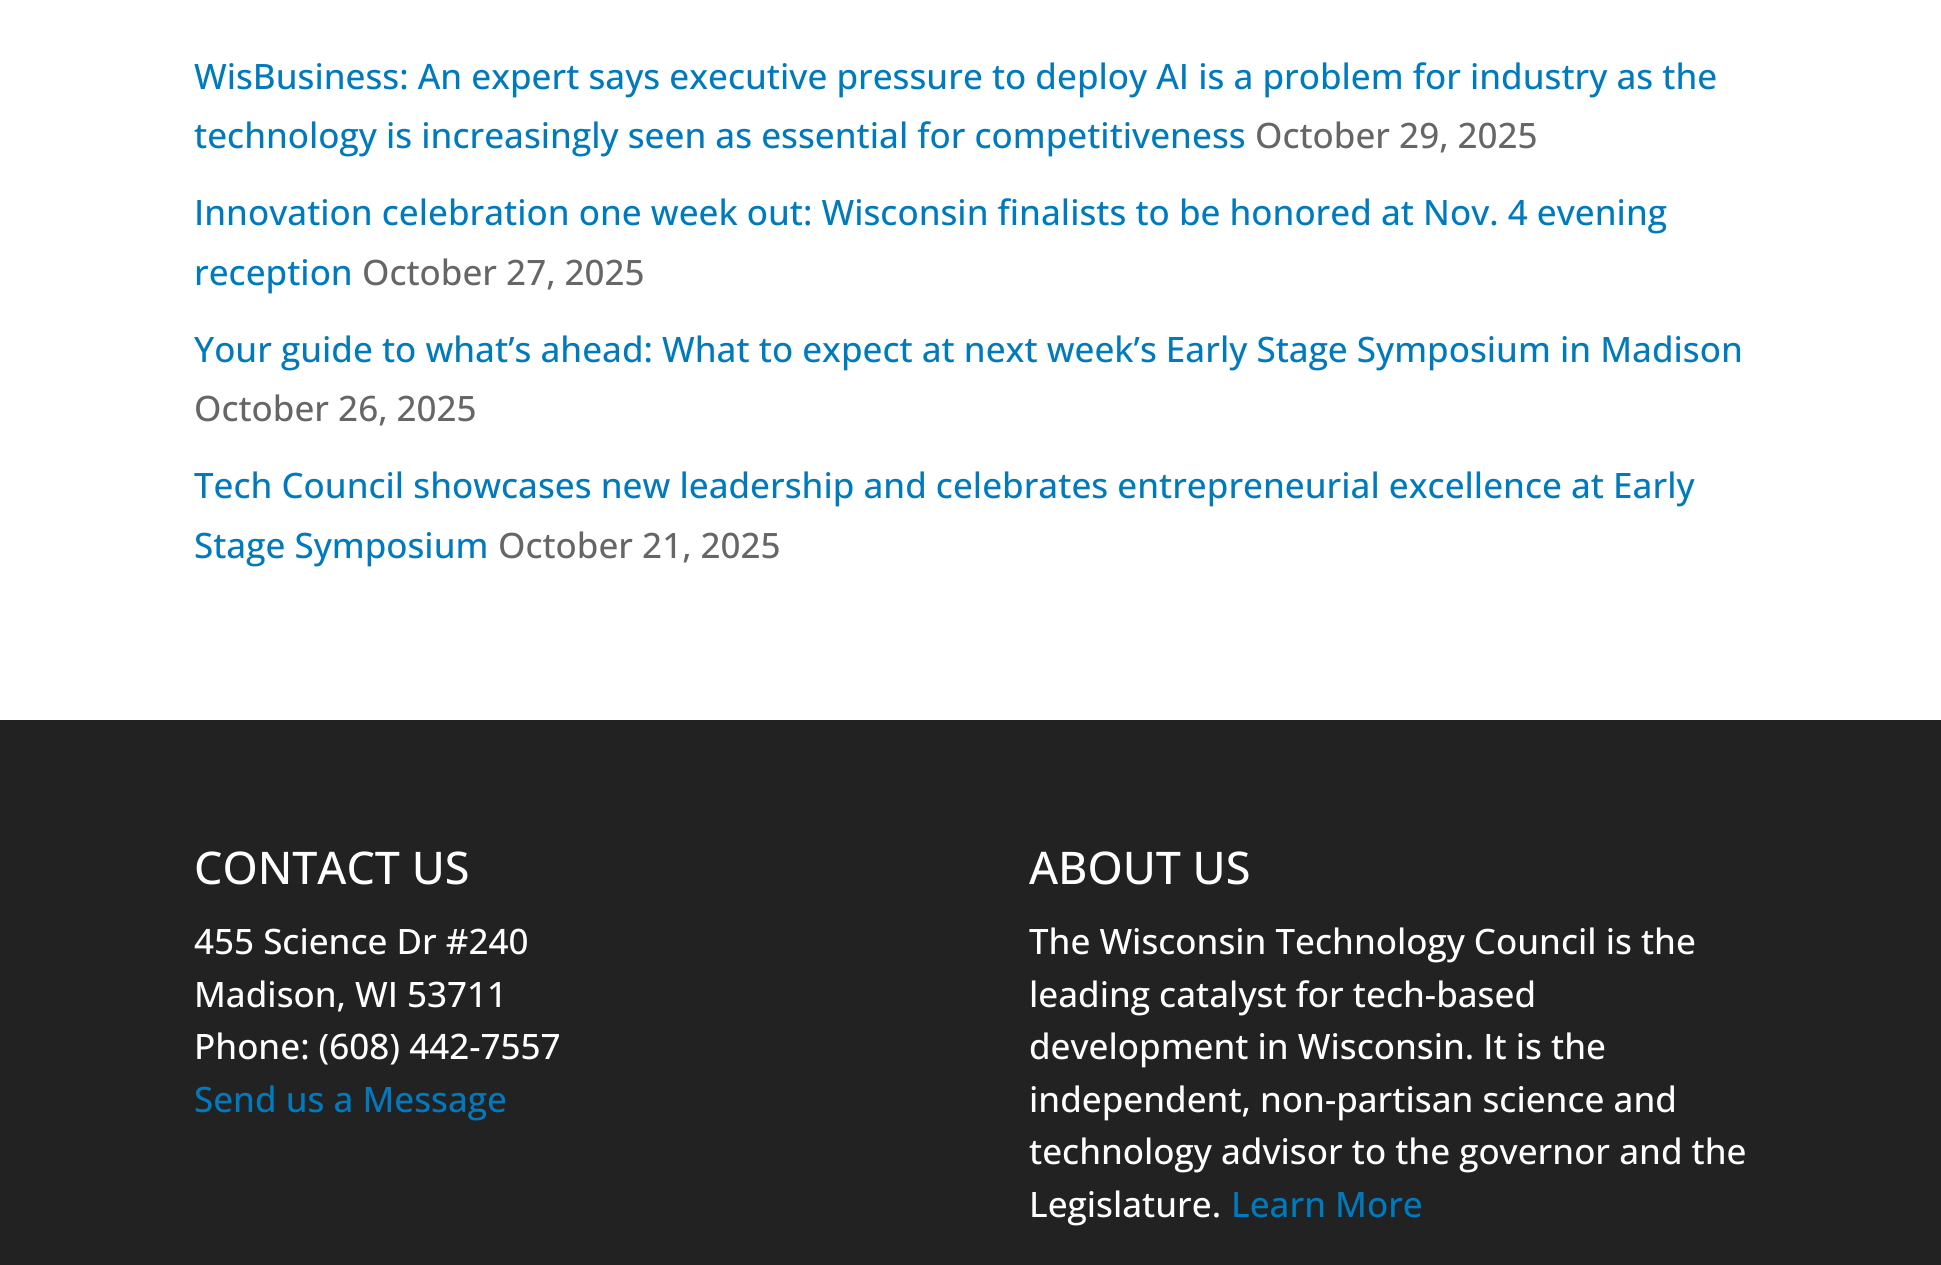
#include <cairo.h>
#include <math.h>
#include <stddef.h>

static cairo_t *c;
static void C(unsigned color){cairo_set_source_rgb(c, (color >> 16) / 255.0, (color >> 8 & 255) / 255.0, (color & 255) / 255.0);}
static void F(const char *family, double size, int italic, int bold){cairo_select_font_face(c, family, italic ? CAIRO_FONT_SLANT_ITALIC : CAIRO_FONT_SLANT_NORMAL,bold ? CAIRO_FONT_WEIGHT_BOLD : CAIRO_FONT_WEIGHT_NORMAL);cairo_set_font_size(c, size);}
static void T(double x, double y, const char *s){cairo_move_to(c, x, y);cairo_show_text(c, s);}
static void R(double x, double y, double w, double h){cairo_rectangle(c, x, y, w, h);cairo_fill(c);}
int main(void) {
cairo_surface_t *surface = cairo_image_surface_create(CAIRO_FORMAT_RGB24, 1941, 1265);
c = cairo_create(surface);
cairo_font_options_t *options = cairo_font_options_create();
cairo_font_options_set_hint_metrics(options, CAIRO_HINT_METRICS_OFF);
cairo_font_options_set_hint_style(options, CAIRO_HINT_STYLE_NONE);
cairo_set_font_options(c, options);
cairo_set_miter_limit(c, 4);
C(0xffffff);
cairo_paint(c);
F("Open Sans Medium",35,0,0);
C(0x007abf);
T(194,89,"WisBusiness: An expert says executive pressure to deploy AI is a problem for industry as the");
T(194,148,"technology is increasingly seen as essential for competitiveness");
C(0x666666);
T(1255,148,"October 29, 2025");
C(0x007abf);
T(194,225,"Innovation celebration one week out: Wisconsin finalists to be honored at Nov. 4 evening");
T(194,285,"reception");
C(0x666666);
T(362,285,"October 27, 2025");
C(0x007abf);
T(194,362,"Your guide to what’s ahead: What to expect at next week’s Early Stage Symposium in Madison");
C(0x666666);
T(194,421,"October 26, 2025");
C(0x007abf);
T(194,498,"Tech Council showcases new leadership and celebrates entrepreneurial excellence at Early");
T(194,558,"Stage Symposium");
C(0x666666);
T(498,558,"October 21, 2025");
C(0x222222);
R(0,720,1941,545);
F("Open Sans Medium",45,0,0);
C(0xffffff);
T(194,884,"CONTACT US");
F("Open Sans Medium",35,0,0);
T(194,954,"455 Science Dr #240");
T(194,1007,"Madison, WI 53711");
T(194,1059,"Phone: (608) 442-7557");
C(0x007abf);
T(194,1112,"Send us a Message");
F("Open Sans Medium",45,0,0);
C(0xffffff);
T(1029,884,"ABOUT US");
F("Open Sans Medium",35,0,0);
T(1029,954,"The Wisconsin Technology Council is the");
T(1029,1007,"leading catalyst for tech-based");
T(1029,1059,"development in Wisconsin. It is the");
T(1029,1112,"independent, non-partisan science and");
T(1029,1164,"technology advisor to the governor and the");
T(1029,1217,"Legislature.");
C(0x007abf);
T(1231,1217,"Learn More");
cairo_surface_write_to_png(surface, "o.png");
cairo_font_options_destroy(options);
cairo_destroy(c);
cairo_surface_destroy(surface);
return 0;
}
